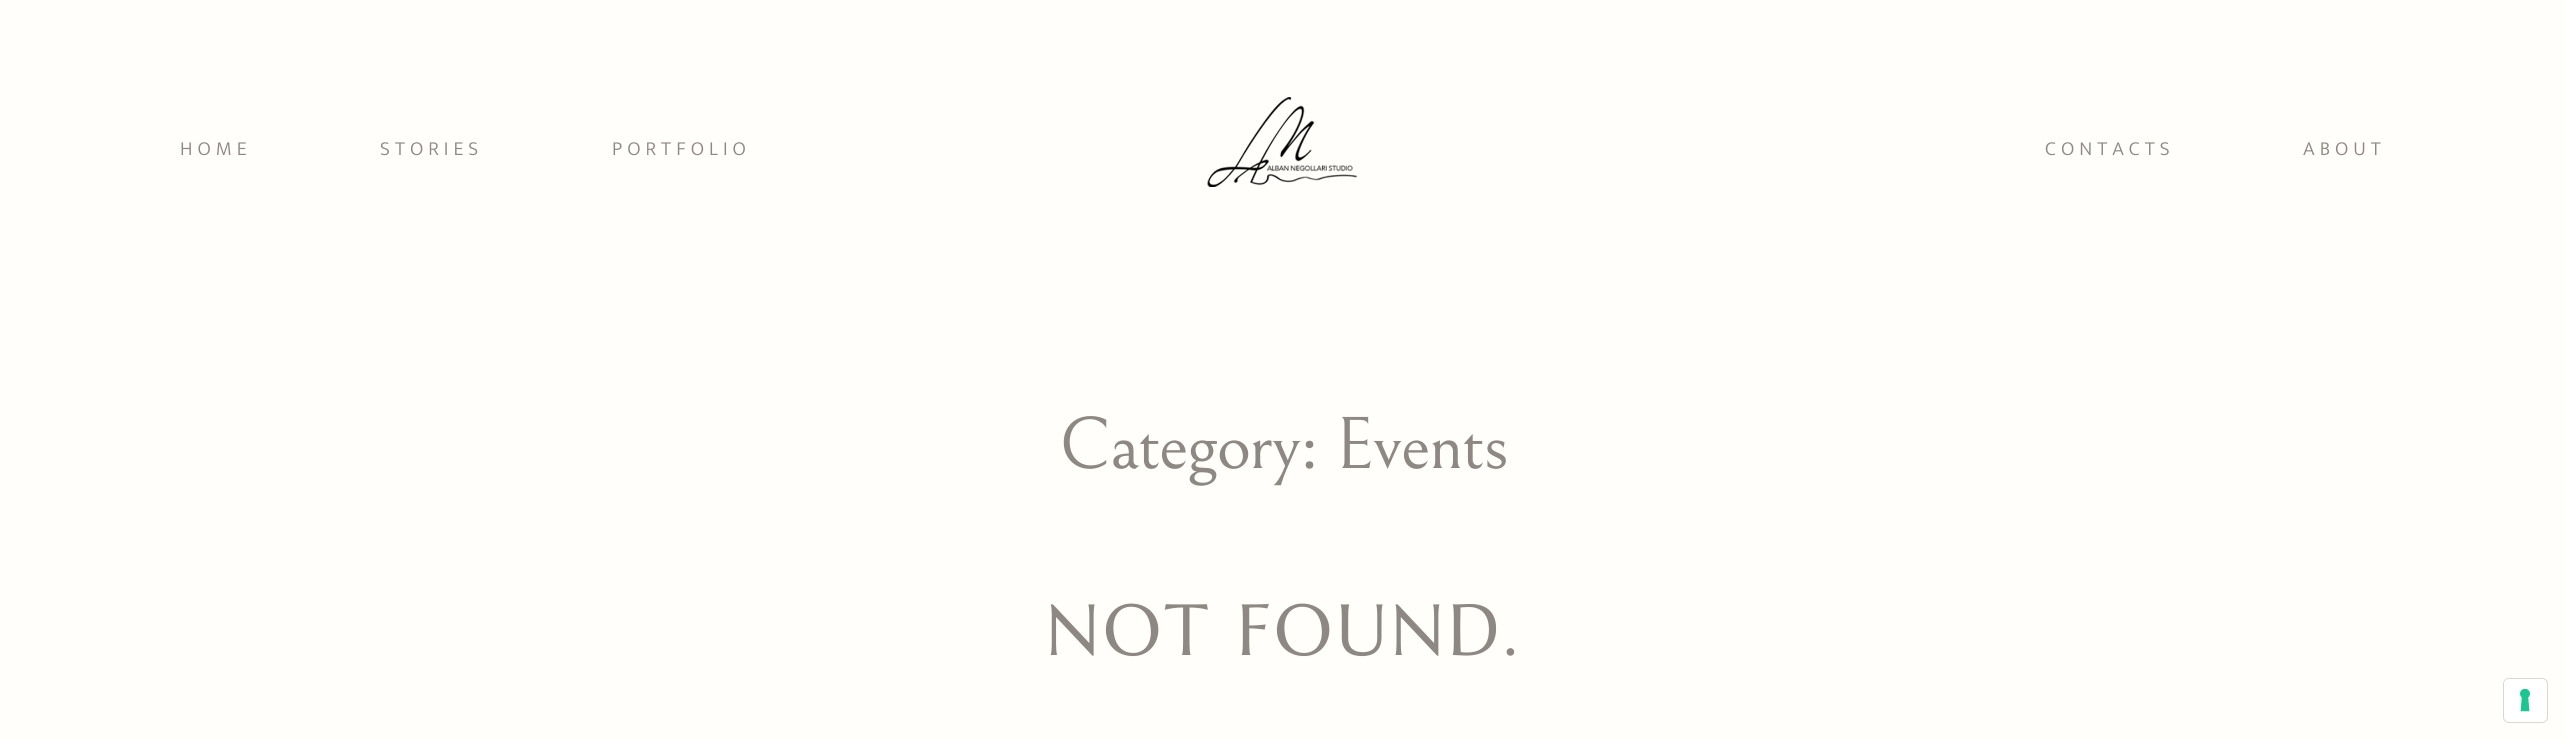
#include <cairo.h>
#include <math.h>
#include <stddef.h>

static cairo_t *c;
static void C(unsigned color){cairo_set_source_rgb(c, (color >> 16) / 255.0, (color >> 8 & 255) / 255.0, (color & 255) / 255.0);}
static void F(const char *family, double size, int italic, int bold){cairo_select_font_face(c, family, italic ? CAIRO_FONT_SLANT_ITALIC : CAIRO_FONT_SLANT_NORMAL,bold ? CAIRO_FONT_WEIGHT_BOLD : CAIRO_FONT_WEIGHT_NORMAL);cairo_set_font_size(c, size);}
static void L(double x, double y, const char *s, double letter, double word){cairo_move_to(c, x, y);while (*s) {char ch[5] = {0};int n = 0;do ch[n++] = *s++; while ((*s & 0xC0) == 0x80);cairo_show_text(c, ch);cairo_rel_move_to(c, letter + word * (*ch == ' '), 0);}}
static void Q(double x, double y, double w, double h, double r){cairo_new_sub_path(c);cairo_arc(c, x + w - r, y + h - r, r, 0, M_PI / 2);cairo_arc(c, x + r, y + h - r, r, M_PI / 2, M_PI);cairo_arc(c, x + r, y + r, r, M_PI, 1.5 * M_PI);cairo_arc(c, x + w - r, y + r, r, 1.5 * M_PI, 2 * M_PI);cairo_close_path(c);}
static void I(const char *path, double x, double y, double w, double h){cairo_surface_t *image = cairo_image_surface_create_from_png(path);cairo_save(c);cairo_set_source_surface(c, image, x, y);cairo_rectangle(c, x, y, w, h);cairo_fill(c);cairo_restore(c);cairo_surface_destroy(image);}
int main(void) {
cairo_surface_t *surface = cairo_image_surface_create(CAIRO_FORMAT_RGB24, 2566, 741);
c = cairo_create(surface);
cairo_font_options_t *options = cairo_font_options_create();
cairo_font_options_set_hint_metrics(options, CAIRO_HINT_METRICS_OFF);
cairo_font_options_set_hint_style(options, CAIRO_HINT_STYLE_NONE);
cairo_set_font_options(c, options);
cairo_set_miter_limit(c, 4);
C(0xfffefb);
cairo_paint(c);
F("Mukta Malar Light",20,0,0);
C(0x8e8884);
L(180,155,"HOME",5,0);
L(380,155,"STORIES",5,0);
L(612,155,"PORTFOLIO",5,0);
I("1.png",1207,97,150,90);
L(2045,155,"CONTACTS",5,0);
L(2303,155,"ABOUT",5,0);
F("Bellefair",74.25,0,0);
L(1059,468,"Category: Events",-1.5,0);
F("Marcellus",72.25,0,0);
L(1046,655,"NOT FOUND.",3.6,0);
Q(2503.5,678.5,44,44,5.5);
C(0xd9d8d5);
cairo_set_line_width(c,1);
cairo_stroke(c);
C(0xffffff);
Q(2504,679,42,42,5);
cairo_fill(c);
I("2.png",2520,688,10,24);
cairo_surface_write_to_png(surface, "o.png");
cairo_font_options_destroy(options);
cairo_destroy(c);
cairo_surface_destroy(surface);
return 0;
}
